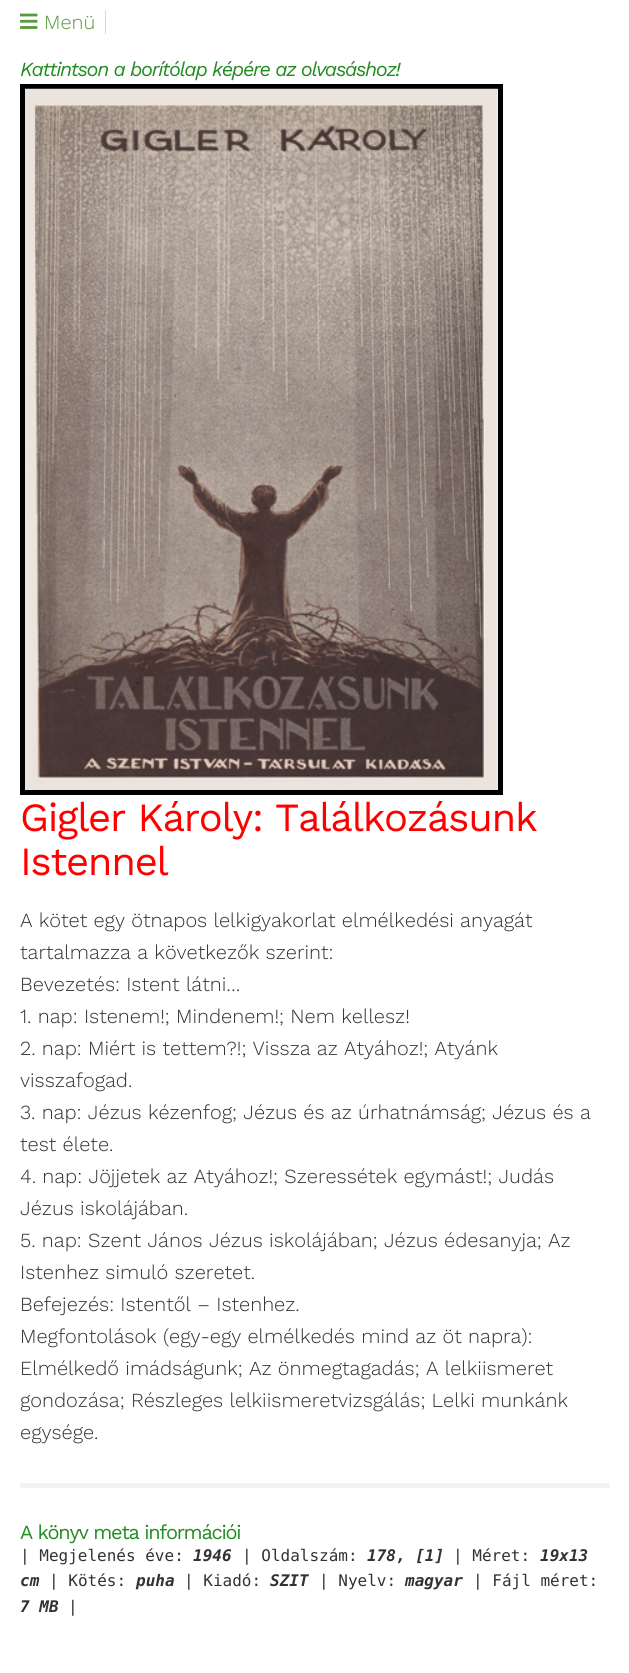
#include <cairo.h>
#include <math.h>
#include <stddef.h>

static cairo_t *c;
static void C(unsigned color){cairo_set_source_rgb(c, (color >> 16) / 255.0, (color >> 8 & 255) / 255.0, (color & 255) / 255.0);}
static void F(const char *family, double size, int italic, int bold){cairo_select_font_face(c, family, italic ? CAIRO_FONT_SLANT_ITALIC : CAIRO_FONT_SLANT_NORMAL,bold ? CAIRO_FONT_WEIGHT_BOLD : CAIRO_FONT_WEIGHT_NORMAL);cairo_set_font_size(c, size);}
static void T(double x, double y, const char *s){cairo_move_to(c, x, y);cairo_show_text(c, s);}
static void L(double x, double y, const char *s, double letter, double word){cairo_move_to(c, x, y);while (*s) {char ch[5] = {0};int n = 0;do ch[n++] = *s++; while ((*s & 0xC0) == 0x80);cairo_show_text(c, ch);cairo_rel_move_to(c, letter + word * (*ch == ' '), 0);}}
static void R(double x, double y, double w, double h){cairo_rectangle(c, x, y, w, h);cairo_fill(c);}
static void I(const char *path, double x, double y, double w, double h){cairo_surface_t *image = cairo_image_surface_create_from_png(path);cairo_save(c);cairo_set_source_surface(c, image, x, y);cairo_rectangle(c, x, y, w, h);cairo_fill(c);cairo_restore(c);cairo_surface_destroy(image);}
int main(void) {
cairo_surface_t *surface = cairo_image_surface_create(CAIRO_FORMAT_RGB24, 629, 1673);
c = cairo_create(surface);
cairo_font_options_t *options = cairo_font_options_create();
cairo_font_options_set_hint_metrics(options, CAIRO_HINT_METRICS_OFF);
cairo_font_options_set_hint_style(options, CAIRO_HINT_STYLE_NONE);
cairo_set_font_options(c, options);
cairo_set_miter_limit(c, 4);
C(0xffffff);
cairo_paint(c);
C(0xdad8d8);
R(105,10,1,24);
I("1.png",20,13,18,16);
F("Work Sans Light",20,0,0);
C(0x599a3e);
T(44,29,"Menü");
F("Work Sans",20,1,0);
C(0x228b22);
L(20,76,"Kattintson a borítólap képére az olvasáshoz!",-1.25,0);
cairo_rectangle(c,22.5,86.5,478,706);
C(0x000000);
cairo_set_line_width(c,5);
cairo_stroke(c);
I("2.png",25,88,473,702);
F("Work Sans",40,0,0);
C(0xff0000);
L(20,831,"Gigler Károly: Találkozásunk",-1.25,0);
L(20,875,"Istennel",-1.25,0);
F("Work Sans Light",20,0,0);
C(0x323232);
T(20,927,"A kötet egy ötnapos lelkigyakorlat elmélkedési anyagát");
T(20,959,"tartalmazza a következők szerint:");
T(20,991,"Bevezetés: Istent látni…");
T(20,1023,"1. nap: Istenem!; Mindenem!; Nem kellesz!");
T(20,1055,"2. nap: Miért is tettem?!; Vissza az Atyához!; Atyánk");
T(20,1087,"visszafogad.");
T(20,1119,"3. nap: Jézus kézenfog; Jézus és az úrhatnámság; Jézus és a");
T(20,1151,"test élete.");
T(20,1183,"4. nap: Jöjjetek az Atyához!; Szeressétek egymást!; Judás");
T(20,1215,"Jézus iskolájában.");
T(20,1247,"5. nap: Szent János Jézus iskolájában; Jézus édesanyja; Az");
T(20,1279,"Istenhez simuló szeretet.");
T(20,1311,"Befejezés: Istentől – Istenhez.");
T(20,1343,"Megfontolások (egy-egy elmélkedés mind az öt napra):");
T(20,1375,"Elmélkedő imádságunk; Az önmegtagadás; A lelkiismeret");
T(20,1407,"gondozása; Részleges lelkiismeretvizsgálás; Lelki munkánk");
T(20,1439,"egysége.");
C(0xf0f2f4);
R(20,1483,590,5);
F("Work Sans",20,0,0);
C(0x228b22);
L(20,1539,"A könyv meta információi",-1.25,0);
F("DejaVu Sans Mono",16,0,0);
C(0x323232);
T(20,1561,"| Megjelenés éve:");
F("DejaVu Sans Mono",16,1,1);
T(193,1561,"1946");
F("DejaVu Sans Mono",16,0,0);
T(242,1561,"| Oldalszám:");
F("DejaVu Sans Mono",16,1,1);
T(367,1561,"178, [1]");
F("DejaVu Sans Mono",16,0,0);
T(453,1561,"| Méret:");
F("DejaVu Sans Mono",16,1,1);
T(540,1561,"19x13");
T(20,1586,"cm");
F("DejaVu Sans Mono",16,0,0);
T(49,1586,"| Kötés:");
F("DejaVu Sans Mono",16,1,1);
T(136,1586,"puha");
F("DejaVu Sans Mono",16,0,0);
T(184,1586,"| Kiadó:");
F("DejaVu Sans Mono",16,1,1);
T(270,1586,"SZIT");
F("DejaVu Sans Mono",16,0,0);
T(319,1586,"| Nyelv:");
F("DejaVu Sans Mono",16,1,1);
T(405,1586,"magyar");
F("DejaVu Sans Mono",16,0,0);
T(473,1586,"| Fájl méret:");
F("DejaVu Sans Mono",16,1,1);
T(20,1612,"7 MB");
F("DejaVu Sans Mono",16,0,0);
T(68,1612,"|");
cairo_surface_write_to_png(surface, "o.png");
cairo_font_options_destroy(options);
cairo_destroy(c);
cairo_surface_destroy(surface);
return 0;
}
